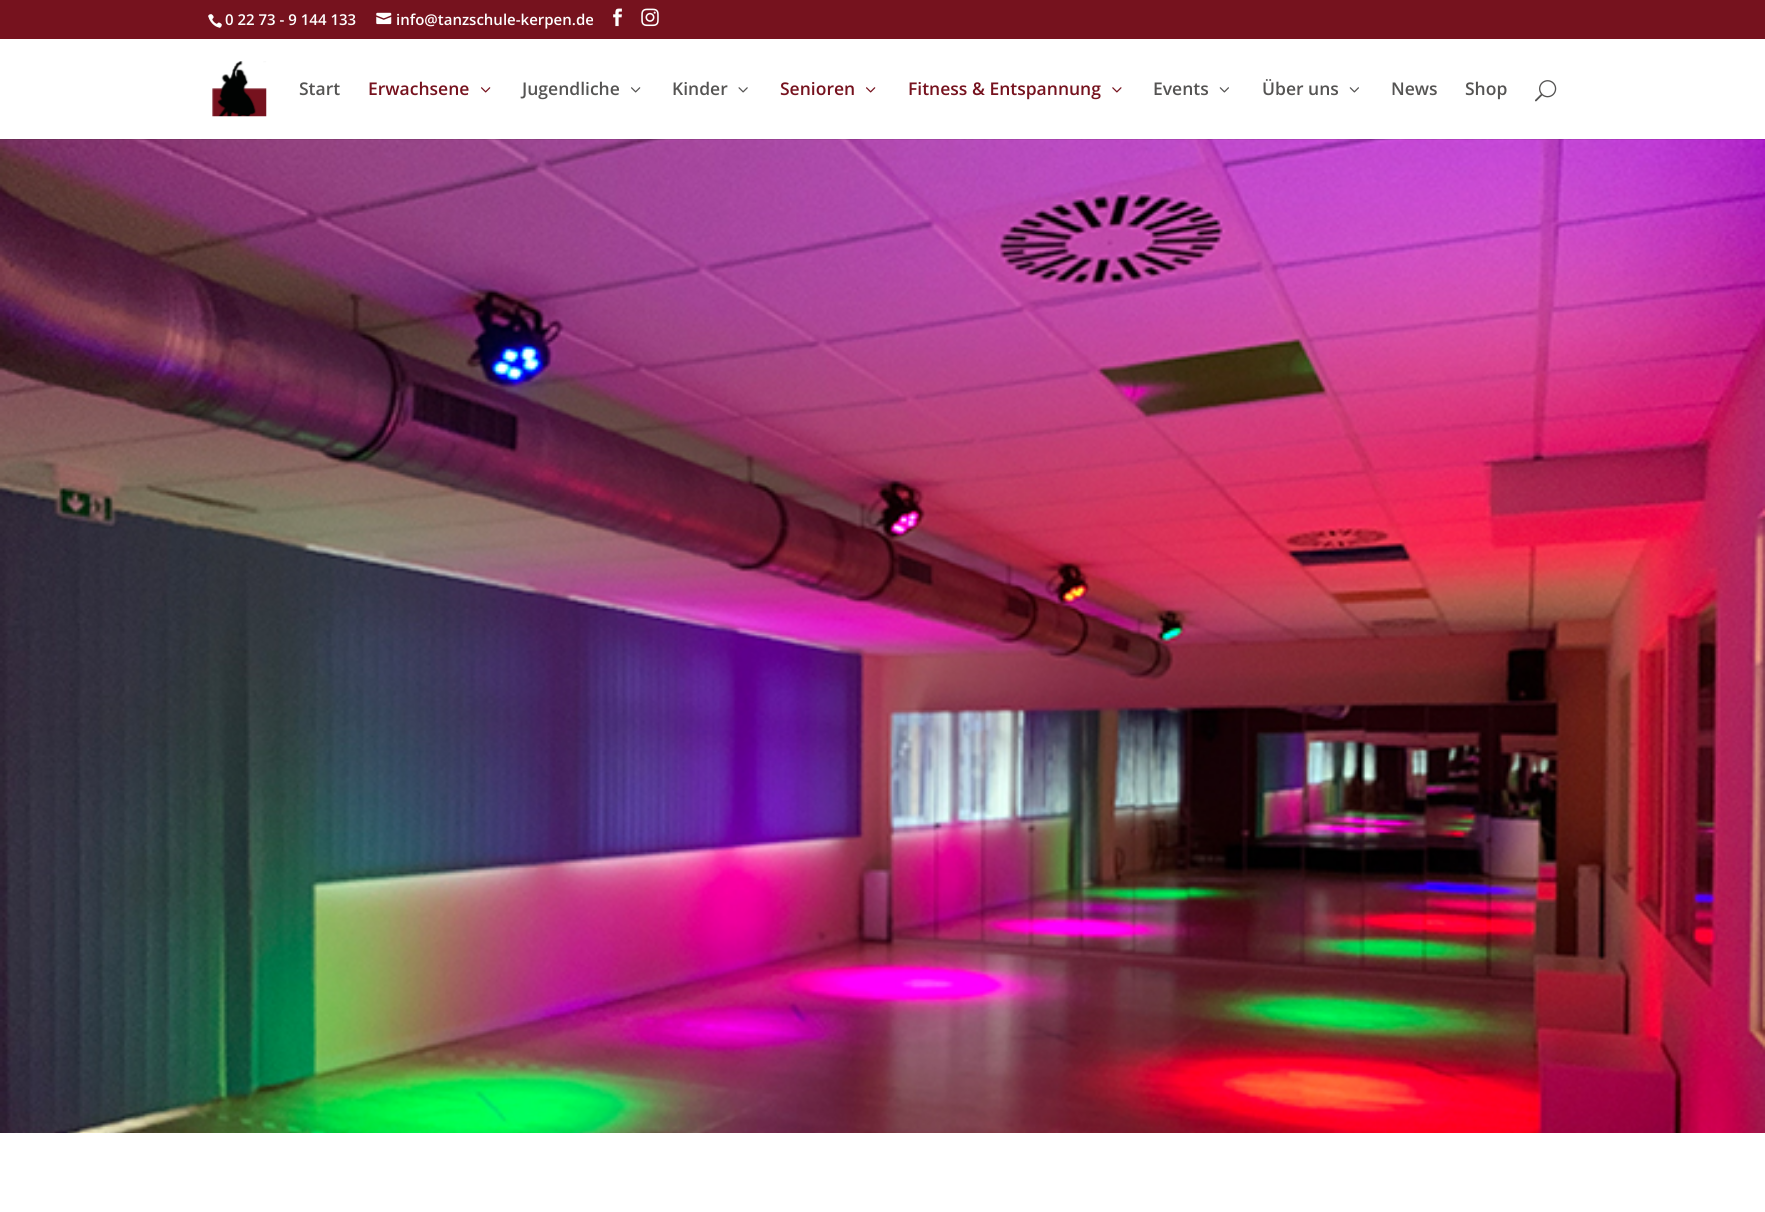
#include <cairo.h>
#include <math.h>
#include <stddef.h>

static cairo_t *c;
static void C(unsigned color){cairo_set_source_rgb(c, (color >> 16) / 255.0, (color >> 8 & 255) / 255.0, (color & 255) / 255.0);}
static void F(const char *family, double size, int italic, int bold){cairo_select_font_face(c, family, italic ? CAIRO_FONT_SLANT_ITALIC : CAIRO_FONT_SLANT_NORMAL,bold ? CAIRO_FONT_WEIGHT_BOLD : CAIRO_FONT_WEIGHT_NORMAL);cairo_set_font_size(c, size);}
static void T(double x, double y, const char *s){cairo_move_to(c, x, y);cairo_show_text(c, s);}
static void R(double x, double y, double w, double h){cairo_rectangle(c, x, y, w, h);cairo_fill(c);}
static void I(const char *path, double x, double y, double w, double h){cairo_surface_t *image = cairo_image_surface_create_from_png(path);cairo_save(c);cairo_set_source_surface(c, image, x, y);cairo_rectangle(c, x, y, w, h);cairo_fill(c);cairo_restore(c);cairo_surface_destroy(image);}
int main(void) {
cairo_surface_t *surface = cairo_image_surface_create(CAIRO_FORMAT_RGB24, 1765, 1212);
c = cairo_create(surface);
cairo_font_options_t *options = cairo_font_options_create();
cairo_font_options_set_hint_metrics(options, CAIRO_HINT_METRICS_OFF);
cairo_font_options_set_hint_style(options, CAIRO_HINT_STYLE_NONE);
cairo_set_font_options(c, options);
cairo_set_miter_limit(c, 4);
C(0xffffff);
cairo_paint(c);
C(0x76121e);
R(0,0,1765,39);
I("1.png",208,14,14,14);
F("Open Sans SemiBold",15,0,0);
C(0xffffff);
T(225,25,"0 22 73 - 9 144 133");
I("2.png",376,12,16,13);
T(396,25,"info@tanzschule-kerpen.de");
I("3.png",613,8,9,19);
I("4.png",641,8,18,19);
I("12.png",0,139,1765,994);
cairo_set_source_rgba(c,0,0,0,0.1);
R(0,139,1765,1);
I("5.png",212,61,55,56);
F("Open Sans SemiBold",17.5,0,0);
C(0x555453);
T(299,95,"Start");
C(0x76121e);
T(368,95,"Erwachsene");
I("6.png",481,87,10,6);
C(0x555453);
T(522,95,"Jugendliche");
I("7.png",631,87,10,6);
T(672,95,"Kinder");
I("8.png",738,87,10,6);
C(0x76121e);
T(780,95,"Senioren");
I("6.png",866,87,10,6);
T(908,95,"Fitness & Entspannung");
I("9.png",1112,87,10,6);
C(0x555453);
T(1153,95,"Events");
I("10.png",1219,87,10,6);
T(1262,95,"Über uns");
I("10.png",1349,87,10,6);
T(1391,95,"News");
T(1465,95,"Shop");
I("11.png",1535,80,22,22);
cairo_surface_write_to_png(surface, "o.png");
cairo_font_options_destroy(options);
cairo_destroy(c);
cairo_surface_destroy(surface);
return 0;
}
